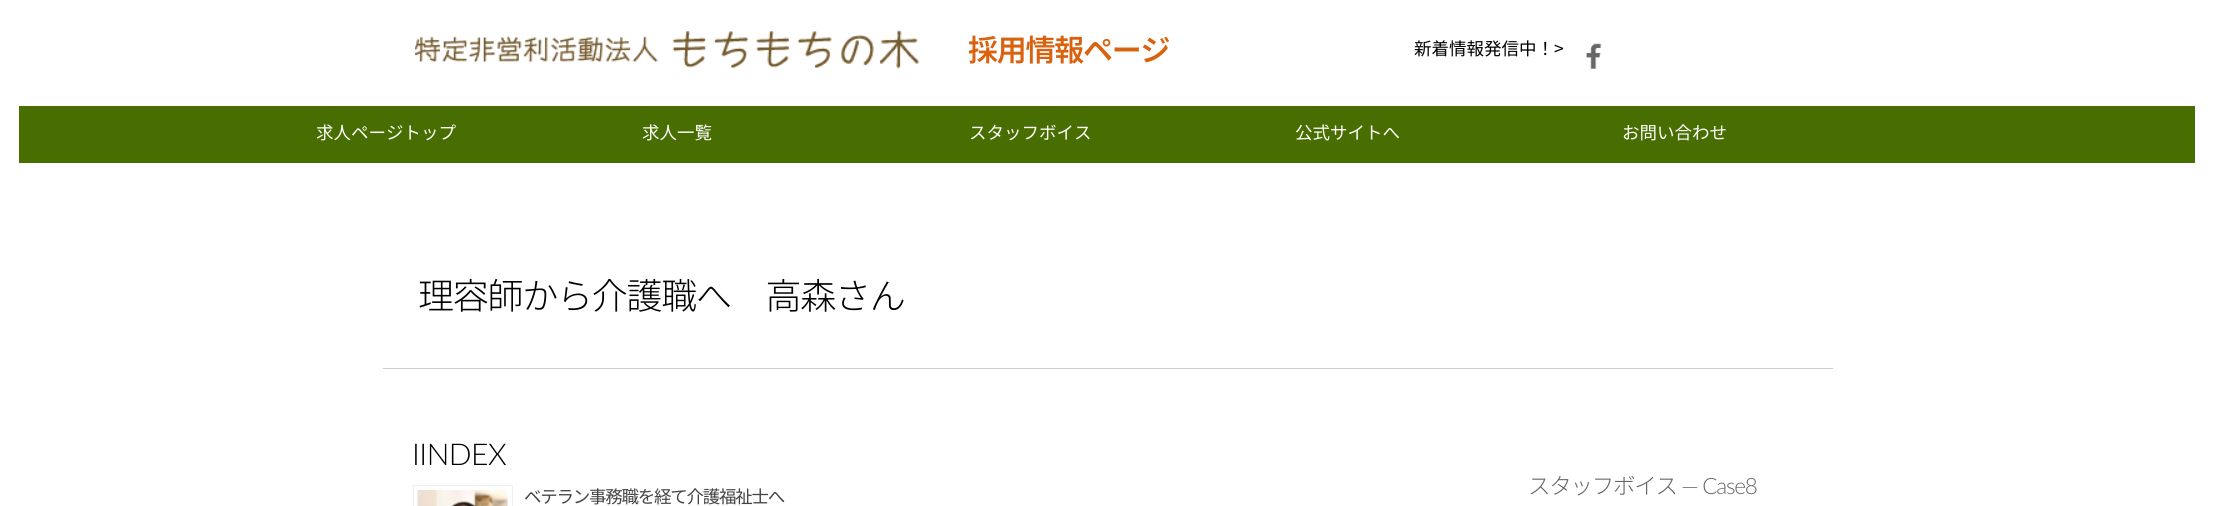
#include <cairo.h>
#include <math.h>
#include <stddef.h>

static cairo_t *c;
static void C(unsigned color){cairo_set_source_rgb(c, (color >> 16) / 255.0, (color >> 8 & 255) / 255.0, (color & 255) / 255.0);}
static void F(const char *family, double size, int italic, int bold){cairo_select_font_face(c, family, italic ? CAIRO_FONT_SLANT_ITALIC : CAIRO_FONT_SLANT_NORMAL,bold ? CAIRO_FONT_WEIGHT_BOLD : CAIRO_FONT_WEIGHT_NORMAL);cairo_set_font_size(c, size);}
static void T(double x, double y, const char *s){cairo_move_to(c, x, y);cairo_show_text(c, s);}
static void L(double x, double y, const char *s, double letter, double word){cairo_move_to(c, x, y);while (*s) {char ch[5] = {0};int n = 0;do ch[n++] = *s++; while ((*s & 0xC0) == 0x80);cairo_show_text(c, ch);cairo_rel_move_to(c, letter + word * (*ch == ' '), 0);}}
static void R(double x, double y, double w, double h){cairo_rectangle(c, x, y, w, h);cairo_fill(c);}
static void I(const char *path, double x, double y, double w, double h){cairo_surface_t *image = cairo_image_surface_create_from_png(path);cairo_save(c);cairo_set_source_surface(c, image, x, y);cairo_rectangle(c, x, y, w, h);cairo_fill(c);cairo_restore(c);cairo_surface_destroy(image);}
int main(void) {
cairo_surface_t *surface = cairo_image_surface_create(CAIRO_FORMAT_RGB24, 2213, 506);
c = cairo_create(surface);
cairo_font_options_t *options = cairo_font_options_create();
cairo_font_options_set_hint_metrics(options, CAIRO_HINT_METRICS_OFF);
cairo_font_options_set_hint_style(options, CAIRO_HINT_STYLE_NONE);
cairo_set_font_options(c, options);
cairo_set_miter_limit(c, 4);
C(0xffffff);
cairo_paint(c);
I("1.png",414,30,505,39);
F("Noto Sans JP SemiBold",30,0,0);
C(0xda620f);
L(968,61,"採用情報ページ",-1.25,0);
F("Noto Sans JP",17.5,0,0);
C(0x000000);
T(1414,55,"新着情報発信中！>");
I("2.png",1586,43,16,26);
C(0x486d00);
R(19,106,2176,57);
C(0xffffff);
T(316,139,"求人ページトップ");
T(642,139,"求人一覧");
T(969,139,"スタッフボイス");
T(1295,139,"公式サイトへ");
T(1622,139,"お問い合わせ");
F("Noto Sans JP Light",36,0,0);
C(0x000000);
L(418,309,"理容師から介護職へ　高森さん",-1.25,0);
C(0xcccccc);
R(383,368,1450,1);
F("Lato Light",30,0,0);
C(0x000000);
L(412,465,"IINDEX",-.5,0);
cairo_rectangle(c,413.5,485.5,99,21);
C(0xeeeeee);
cairo_set_line_width(c,1);
cairo_stroke(c);
I("3.png",417,490,91,16);
F("Noto Sans JP",17.5,0,0);
C(0x444444);
L(524,503,"ベテラン事務職を経て介護福祉士へ",-1.25,0);
F("Noto Sans JP Light",22.5,0,0);
C(0x666666);
L(1528,494,"スタッフボイス",-1.25,0);
F("Lato Light",22.5,0,0);
L(1681,494,"― Case8",-1.25,0);
cairo_surface_write_to_png(surface, "o.png");
cairo_font_options_destroy(options);
cairo_destroy(c);
cairo_surface_destroy(surface);
return 0;
}
